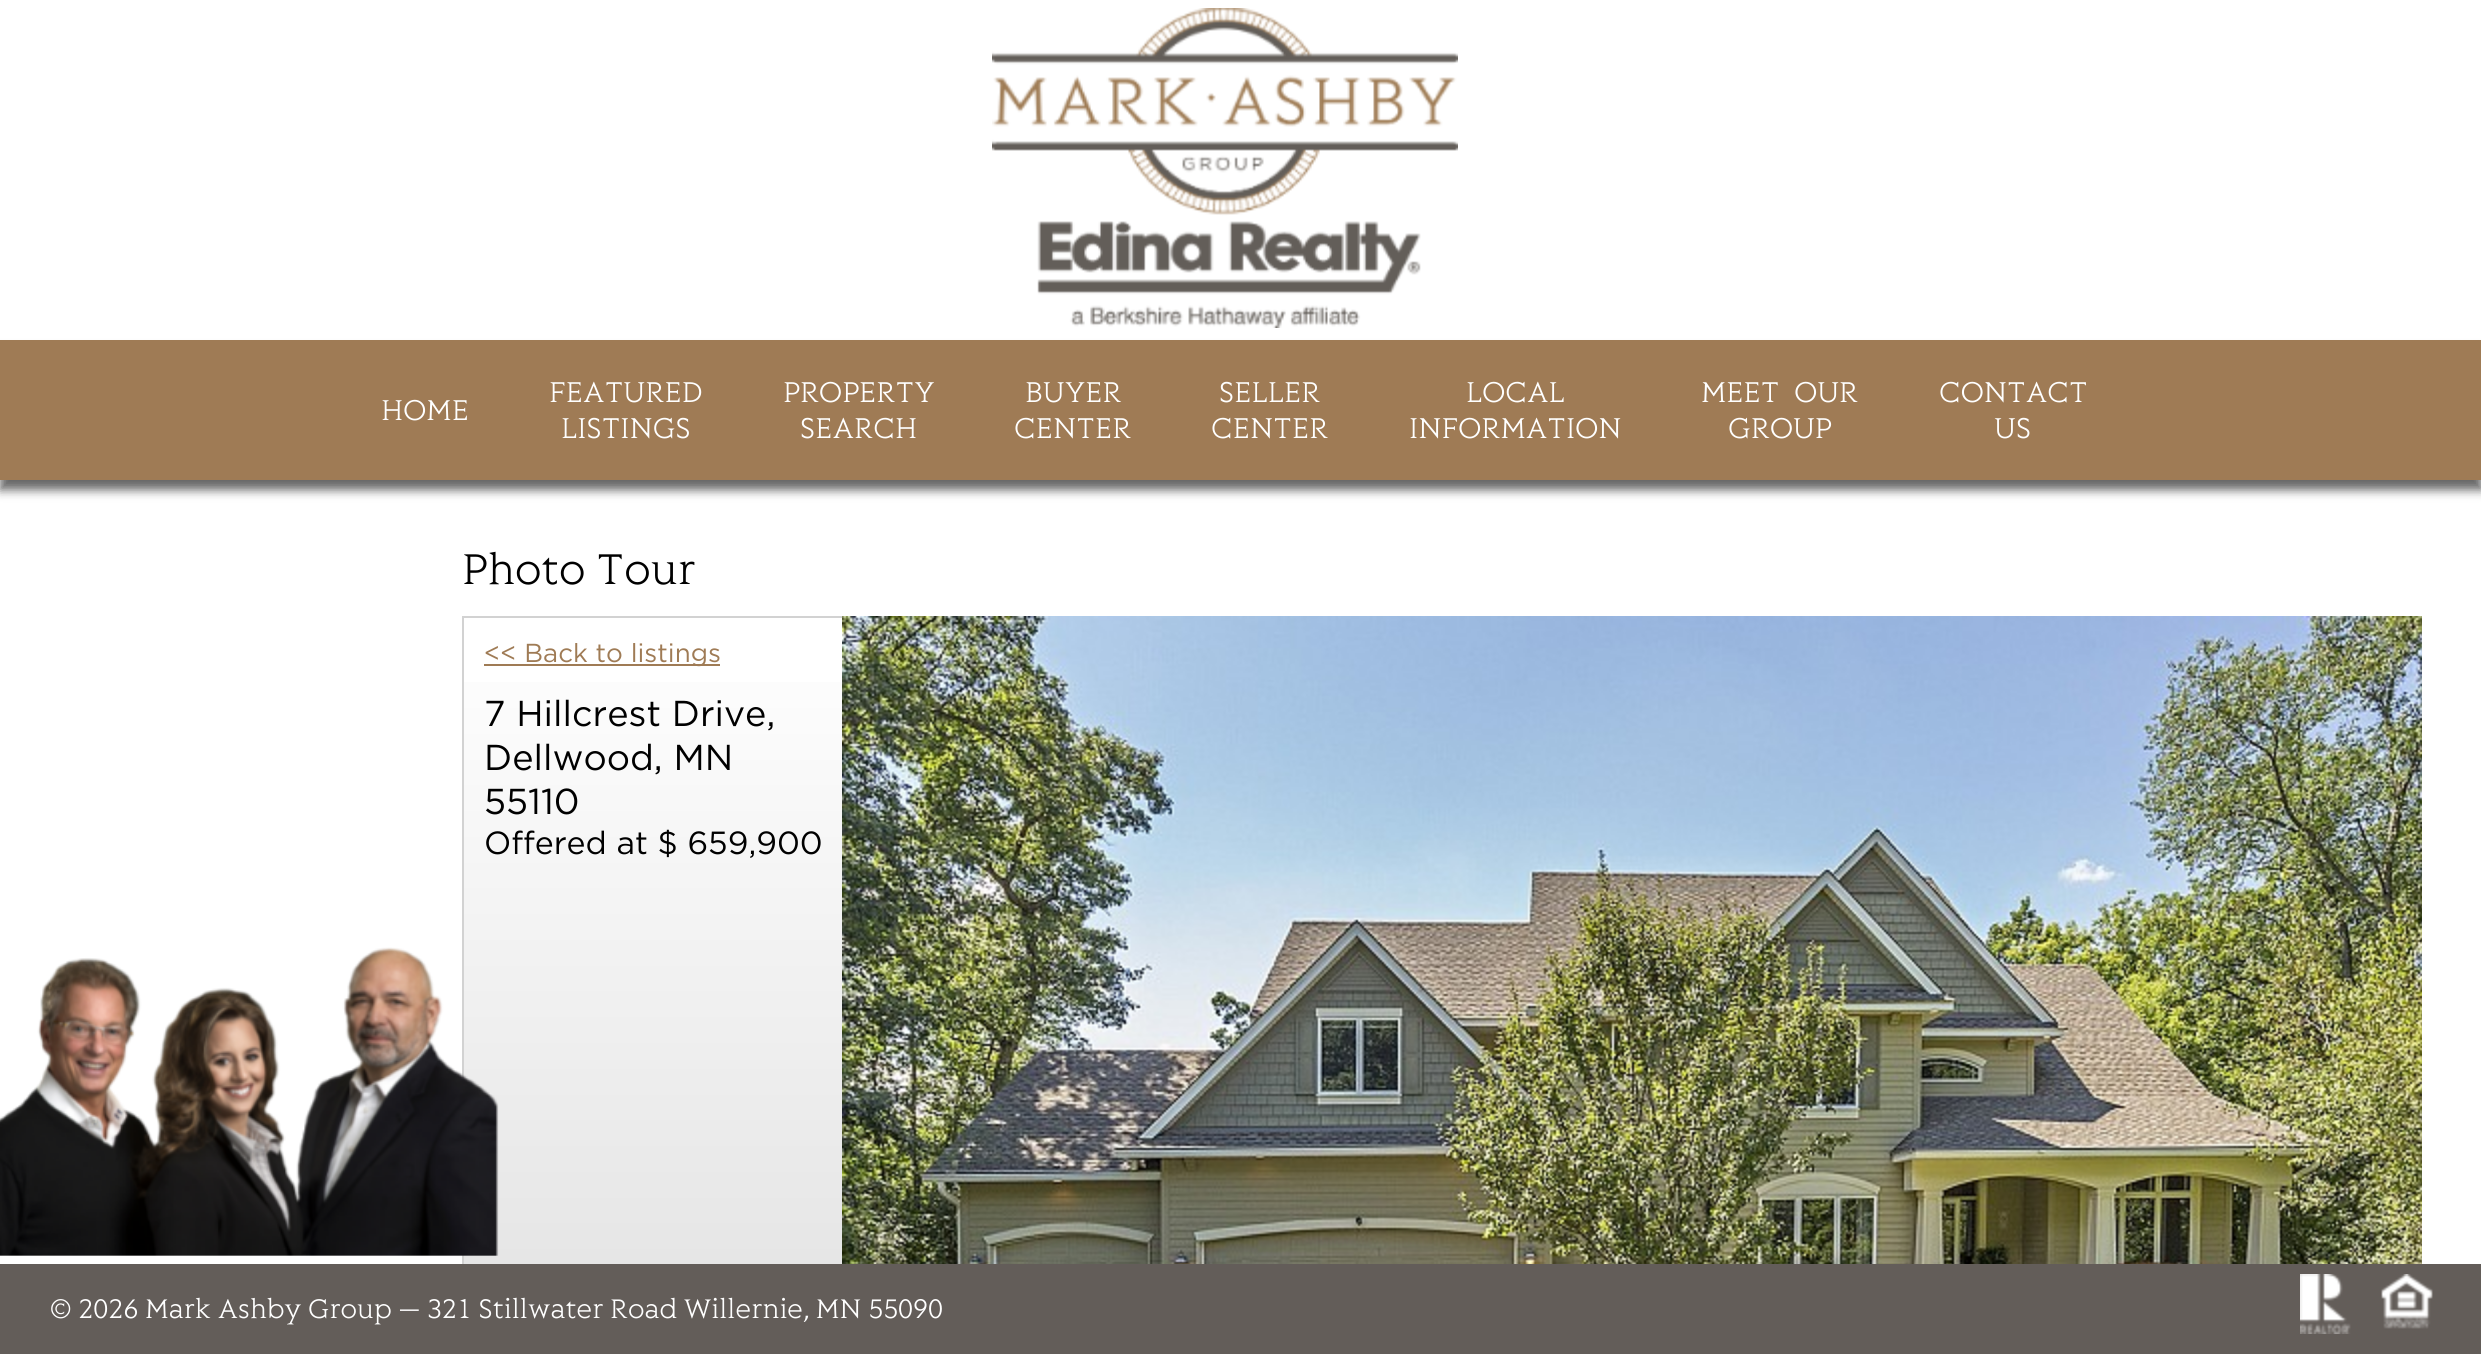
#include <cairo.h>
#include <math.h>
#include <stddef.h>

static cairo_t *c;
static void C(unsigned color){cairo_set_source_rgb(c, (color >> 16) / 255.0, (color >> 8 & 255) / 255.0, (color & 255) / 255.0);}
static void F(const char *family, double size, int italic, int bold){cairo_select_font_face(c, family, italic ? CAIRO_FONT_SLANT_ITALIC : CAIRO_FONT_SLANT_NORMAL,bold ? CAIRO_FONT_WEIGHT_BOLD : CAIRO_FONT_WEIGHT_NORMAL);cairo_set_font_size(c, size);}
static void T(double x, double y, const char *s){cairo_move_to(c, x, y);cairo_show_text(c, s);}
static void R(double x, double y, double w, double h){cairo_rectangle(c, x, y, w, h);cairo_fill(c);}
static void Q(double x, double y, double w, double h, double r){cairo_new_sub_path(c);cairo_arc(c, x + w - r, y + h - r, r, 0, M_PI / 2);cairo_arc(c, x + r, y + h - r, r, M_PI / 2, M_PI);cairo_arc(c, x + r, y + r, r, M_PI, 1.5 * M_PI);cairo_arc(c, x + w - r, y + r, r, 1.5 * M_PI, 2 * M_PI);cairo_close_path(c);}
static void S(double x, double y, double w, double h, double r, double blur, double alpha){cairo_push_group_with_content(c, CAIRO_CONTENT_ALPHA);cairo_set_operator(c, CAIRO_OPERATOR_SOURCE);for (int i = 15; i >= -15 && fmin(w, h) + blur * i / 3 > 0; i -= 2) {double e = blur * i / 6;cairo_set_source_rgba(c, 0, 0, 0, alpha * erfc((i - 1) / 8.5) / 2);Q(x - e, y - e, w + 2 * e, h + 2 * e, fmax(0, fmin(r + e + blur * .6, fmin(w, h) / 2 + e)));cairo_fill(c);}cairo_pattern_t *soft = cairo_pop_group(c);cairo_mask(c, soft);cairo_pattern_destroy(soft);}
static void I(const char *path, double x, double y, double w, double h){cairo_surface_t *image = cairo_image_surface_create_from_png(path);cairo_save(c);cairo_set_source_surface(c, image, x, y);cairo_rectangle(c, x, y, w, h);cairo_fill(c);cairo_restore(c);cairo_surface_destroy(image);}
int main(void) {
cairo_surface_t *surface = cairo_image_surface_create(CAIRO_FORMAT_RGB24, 2481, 1354);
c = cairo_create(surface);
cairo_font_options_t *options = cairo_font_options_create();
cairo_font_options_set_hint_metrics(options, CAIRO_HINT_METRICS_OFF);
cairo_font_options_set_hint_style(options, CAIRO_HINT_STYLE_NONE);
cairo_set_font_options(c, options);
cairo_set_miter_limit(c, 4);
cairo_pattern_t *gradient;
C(0xffffff);
cairo_paint(c);
I("1.png",992,8,466,320);
C(0x000000);
S(0,350,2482,140,0,5,.6);
C(0x9f7b55);
R(0,340,2481,140);
F("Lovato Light",32,0,0);
C(0xffffff);
T(381,420,"HOME");
T(549,402,"FEATURED");
T(561,438,"LISTINGS");
T(783,402,"PROPERTY");
T(800,438,"SEARCH");
T(1025,402,"BUYER");
T(1014,438,"CENTER");
T(1219,402,"SELLER");
T(1211,438,"CENTER");
T(1466,402,"LOCAL");
T(1409,438,"INFORMATION");
T(1701,402,"MEET  OUR");
T(1728,438,"GROUP");
T(1939,402,"CONTACT");
T(1994,438,"US");
F("Lovato Light",48,0,0);
C(0x000000);
T(462,584,"Photo Tour");
gradient = cairo_pattern_create_linear(654,618,654,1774);
cairo_pattern_add_color_stop_rgba(gradient,0,1,1,1,1);
cairo_pattern_add_color_stop_rgba(gradient,1,0.824,0.824,0.824,1);
cairo_set_source(c,gradient);
cairo_pattern_destroy(gradient);
R(464,682,378,582);
cairo_rectangle(c,463,617,382,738);
C(0xd2d2d2);
cairo_stroke(c);
C(0x9f7b55);
R(484,664,236,2);
F("Gotham",26,0,0);
T(484,662,"<< Back to listings");
F("Gotham",36,0,0);
C(0x000000);
T(484,726,"7 Hillcrest Drive,");
T(484,770,"Dellwood, MN");
T(484,814,"55110");
F("Gotham",32,0,0);
T(484,854,"Offered at $ 659,900");
I("2.png",842,616,1580,648);
C(0x635d59);
R(0,1264,2481,90);
I("3.png",0,947,499,309);
F("Lovato Light",30,0,0);
C(0xffffff);
T(50,1318,"© 2026 Mark Ashby Group — 321 Stillwater Road Willernie, MN 55090");
I("4.png",2300,1274,133,60);
cairo_surface_write_to_png(surface, "o.png");
cairo_font_options_destroy(options);
cairo_destroy(c);
cairo_surface_destroy(surface);
return 0;
}
